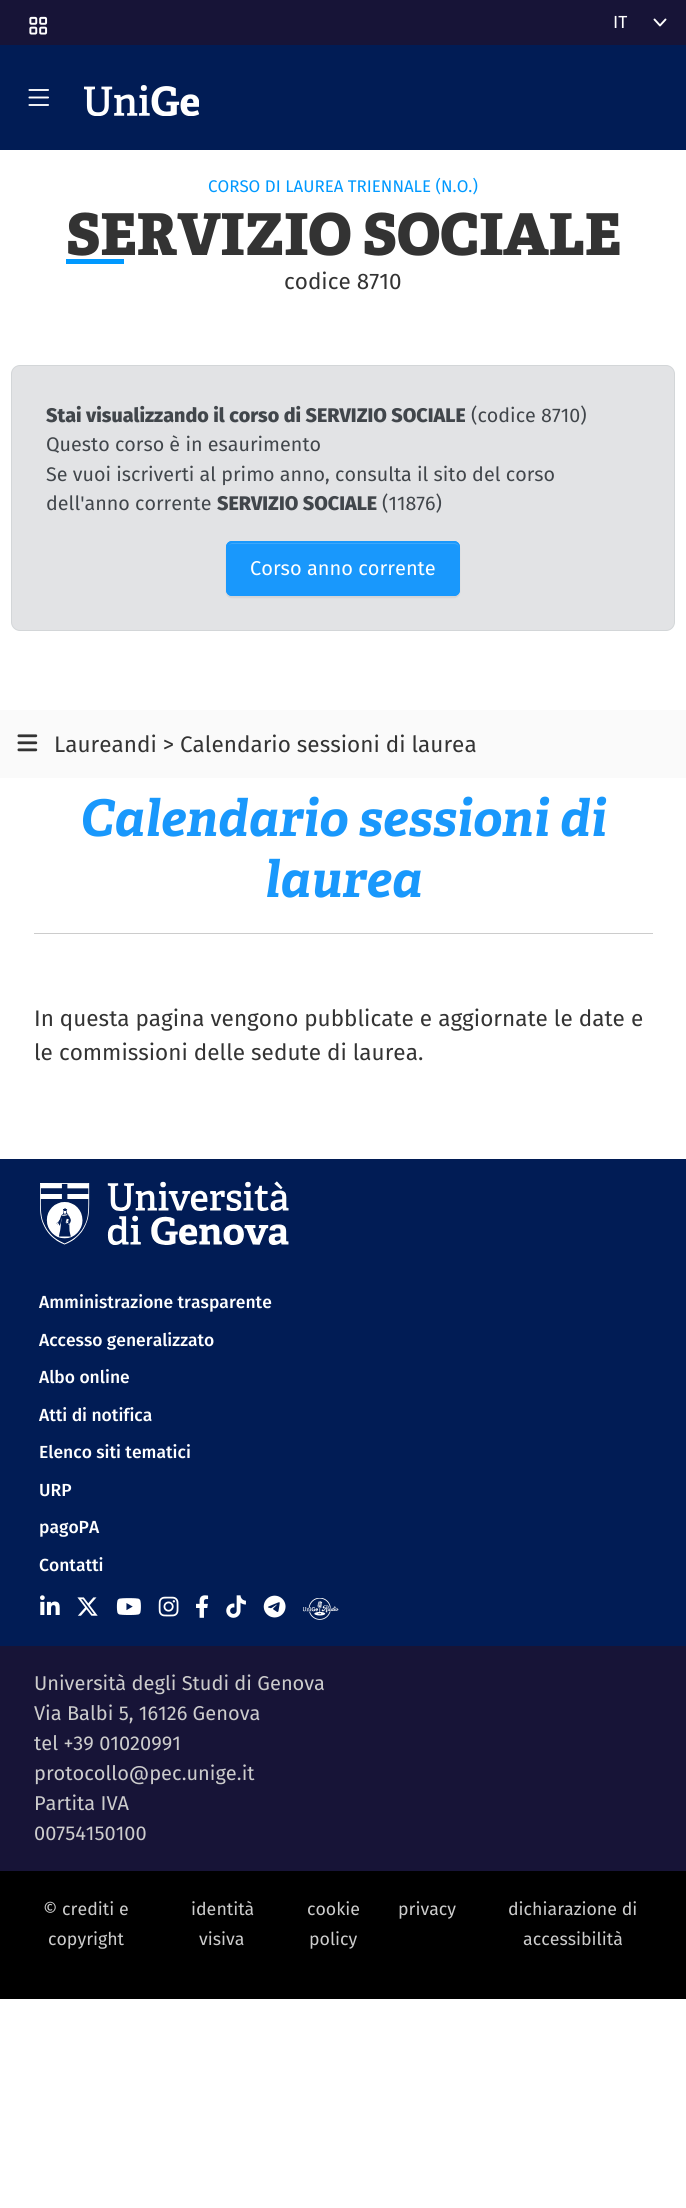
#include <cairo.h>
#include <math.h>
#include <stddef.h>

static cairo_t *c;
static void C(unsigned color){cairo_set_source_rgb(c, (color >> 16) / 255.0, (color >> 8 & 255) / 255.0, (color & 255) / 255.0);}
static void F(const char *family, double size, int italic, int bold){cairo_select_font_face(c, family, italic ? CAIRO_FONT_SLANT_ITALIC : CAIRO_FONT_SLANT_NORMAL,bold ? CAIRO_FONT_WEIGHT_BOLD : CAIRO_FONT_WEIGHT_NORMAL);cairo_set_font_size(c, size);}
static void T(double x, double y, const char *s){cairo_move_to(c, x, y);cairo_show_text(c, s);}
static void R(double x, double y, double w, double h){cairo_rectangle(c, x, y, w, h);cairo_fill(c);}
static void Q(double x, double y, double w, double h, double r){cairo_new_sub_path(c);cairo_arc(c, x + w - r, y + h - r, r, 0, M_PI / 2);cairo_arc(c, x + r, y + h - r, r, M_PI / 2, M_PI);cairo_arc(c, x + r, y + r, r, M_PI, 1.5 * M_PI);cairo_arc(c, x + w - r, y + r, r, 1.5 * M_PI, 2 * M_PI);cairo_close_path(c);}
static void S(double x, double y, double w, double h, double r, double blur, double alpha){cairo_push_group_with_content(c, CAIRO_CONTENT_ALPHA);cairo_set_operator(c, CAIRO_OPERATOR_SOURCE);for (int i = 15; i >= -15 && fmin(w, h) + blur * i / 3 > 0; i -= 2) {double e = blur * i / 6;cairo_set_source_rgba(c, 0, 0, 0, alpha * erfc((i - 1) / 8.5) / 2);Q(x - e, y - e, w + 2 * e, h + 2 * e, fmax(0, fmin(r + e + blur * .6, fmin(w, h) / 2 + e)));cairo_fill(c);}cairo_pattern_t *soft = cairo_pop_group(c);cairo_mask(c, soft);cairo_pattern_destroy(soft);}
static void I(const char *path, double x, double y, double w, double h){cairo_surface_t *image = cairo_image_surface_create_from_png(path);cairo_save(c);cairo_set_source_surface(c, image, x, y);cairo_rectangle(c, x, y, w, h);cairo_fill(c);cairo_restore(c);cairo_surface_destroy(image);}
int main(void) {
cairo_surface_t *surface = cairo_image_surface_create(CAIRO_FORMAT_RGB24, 686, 2208);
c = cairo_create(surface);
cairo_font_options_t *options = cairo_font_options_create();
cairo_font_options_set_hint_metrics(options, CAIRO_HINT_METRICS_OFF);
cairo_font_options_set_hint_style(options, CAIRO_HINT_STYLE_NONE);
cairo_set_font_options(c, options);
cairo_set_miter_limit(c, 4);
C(0xffffff);
cairo_paint(c);
C(0x171437);
R(0,0,686,45);
I("1.png",29,16,19,19);
cairo_new_path(c);
cairo_move_to(c,654.5,19.5);
cairo_line_to(c,660,25.5);
cairo_line_to(c,665.5,19.5);
C(0xffffff);
cairo_set_line_width(c,1.9);
cairo_set_line_cap(c,CAIRO_LINE_CAP_ROUND);
cairo_set_line_join(c,CAIRO_LINE_JOIN_ROUND);
cairo_stroke(c);
F("Fira Sans",17.5,0,0);
T(613,28,"IT");
C(0x011c55);
R(0,45,686,105);
I("2.png",28,89,21,17);
I("3.png",84,85,115,31);
F("Fira Sans",16.9,0,0);
C(0x0099ff);
T(208,192,"CORSO DI LAUREA TRIENNALE (N.O.)");
F("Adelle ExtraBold",57.75,0,0);
C(0x333333);
T(66,255,"SERVIZIO SOCIALE");
C(0x0099ff);
R(66,259,58,5);
F("Fira Sans",22.5,0,0);
C(0x333333);
T(284,289,"codice 8710");
C(0xe2e3e5);
Q(11.5,365.5,663,265,8.5);
cairo_fill_preserve(c);
C(0xd3d6d8);
cairo_set_line_width(c,1);
cairo_set_line_cap(c,CAIRO_LINE_CAP_BUTT);
cairo_set_line_join(c,CAIRO_LINE_JOIN_MITER);
cairo_stroke(c);
F("Fira Sans ExtraBold",19.7,0,0);
C(0x41464b);
T(46,422,"Stai visualizzando il corso di SERVIZIO SOCIALE");
F("Fira Sans",19.7,0,0);
T(471,422,"(codice 8710)");
T(46,451,"Questo corso è in esaurimento");
T(46,481,"Se vuoi iscriverti al primo anno, consulta il sito del corso");
T(46,510,"dell'anno corrente");
F("Fira Sans ExtraBold",19.7,0,0);
T(217,510,"SERVIZIO SOCIALE");
F("Fira Sans",19.7,0,0);
T(382,510,"(11876)");
C(0x000000);
S(226,543,234,55,6,.5,.07);
C(0x1998fc);
Q(226,541,234,55,6);
cairo_fill(c);
C(0x3ca7fc);
cairo_new_path(c);
cairo_move_to(c,232,544);
cairo_line_to(c,454,544);
cairo_curve_to(c,457,544,459,546,459,548);
cairo_curve_to(c,459,545,457,543,454,543);
cairo_line_to(c,233,543);
cairo_curve_to(c,231,543,229,544,229,546);
cairo_curve_to(c,229,545,230,544,232,544);
cairo_close_path(c);
cairo_fill(c);
Q(226.5,541.5,233,54,5.5);
C(0x1998fc);
cairo_stroke(c);
F("Fira Sans",20,0,0);
C(0xffffff);
T(250,575,"Corso anno corrente");
C(0xfafafa);
R(0,710,686,68);
I("4.png",17,734,21,18);
F("Fira Sans",22.5,0,0);
C(0x333333);
T(54,752,"Laureandi > Calendario sessioni di laurea");
C(0xcccccc);
R(34,933,619,1);
F("Adelle",50.6,1,1);
C(0x1998fc);
T(80,836,"Calendario sessioni di");
T(264,897,"laurea");
F("Fira Sans",22.5,0,0);
C(0x333333);
T(34,1026,"In questa pagina vengono pubblicate e aggiornate le date e");
T(34,1060,"le commissioni delle sedute di laurea.");
C(0x011c55);
R(0,1159,686,487);
I("5.png",40,1181,249,64);
F("Fira Sans Medium",17.5,0,0);
C(0xffffff);
T(39,1308,"Amministrazione trasparente");
T(39,1346,"Accesso generalizzato");
T(39,1383,"Albo online");
T(39,1421,"Atti di notifica");
T(39,1458,"Elenco siti tematici");
T(39,1496,"URP");
T(39,1533,"pagoPA");
T(39,1571,"Contatti");
I("6.png",40,1595,20,20);
I("7.png",77,1597,21,19);
I("8.png",116,1598,25,17);
I("9.png",158,1596,21,21);
I("10.png",196,1595,13,23);
I("11.png",226,1595,20,23);
I("12.png",263,1595,23,23);
I("13.png",303,1598,36,22);
C(0x171437);
R(0,1646,686,225);
F("Fira Sans",20,0,0);
C(0xcccccc);
T(34,1690,"Università degli Studi di Genova");
T(34,1720,"Via Balbi 5, 16126 Genova");
T(34,1750,"tel +39 01020991");
T(34,1780,"protocollo@pec.unige.it");
T(34,1810,"Partita IVA");
T(34,1840,"00754150100");
C(0x000000);
R(0,1871,686,128);
F("Fira Sans",17.75,0,0);
C(0xcccccc);
T(43,1915,"© crediti e");
T(48,1945,"copyright");
T(191,1915,"identità");
T(199,1945,"visiva");
T(307,1915,"cookie");
T(309,1945,"policy");
T(398,1915,"privacy");
T(508,1915,"dichiarazione di");
T(523,1945,"accessibilità");
cairo_surface_write_to_png(surface, "o.png");
cairo_font_options_destroy(options);
cairo_destroy(c);
cairo_surface_destroy(surface);
return 0;
}
